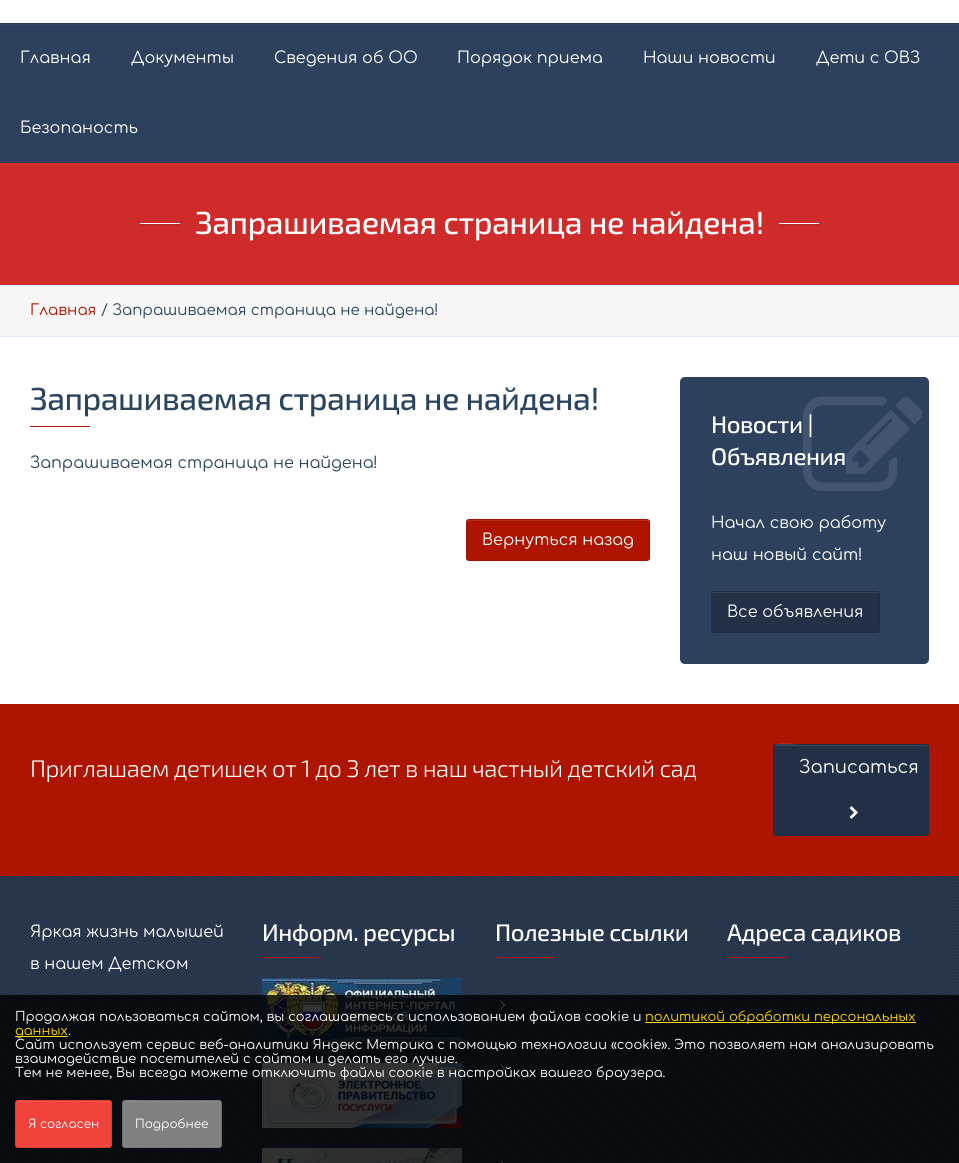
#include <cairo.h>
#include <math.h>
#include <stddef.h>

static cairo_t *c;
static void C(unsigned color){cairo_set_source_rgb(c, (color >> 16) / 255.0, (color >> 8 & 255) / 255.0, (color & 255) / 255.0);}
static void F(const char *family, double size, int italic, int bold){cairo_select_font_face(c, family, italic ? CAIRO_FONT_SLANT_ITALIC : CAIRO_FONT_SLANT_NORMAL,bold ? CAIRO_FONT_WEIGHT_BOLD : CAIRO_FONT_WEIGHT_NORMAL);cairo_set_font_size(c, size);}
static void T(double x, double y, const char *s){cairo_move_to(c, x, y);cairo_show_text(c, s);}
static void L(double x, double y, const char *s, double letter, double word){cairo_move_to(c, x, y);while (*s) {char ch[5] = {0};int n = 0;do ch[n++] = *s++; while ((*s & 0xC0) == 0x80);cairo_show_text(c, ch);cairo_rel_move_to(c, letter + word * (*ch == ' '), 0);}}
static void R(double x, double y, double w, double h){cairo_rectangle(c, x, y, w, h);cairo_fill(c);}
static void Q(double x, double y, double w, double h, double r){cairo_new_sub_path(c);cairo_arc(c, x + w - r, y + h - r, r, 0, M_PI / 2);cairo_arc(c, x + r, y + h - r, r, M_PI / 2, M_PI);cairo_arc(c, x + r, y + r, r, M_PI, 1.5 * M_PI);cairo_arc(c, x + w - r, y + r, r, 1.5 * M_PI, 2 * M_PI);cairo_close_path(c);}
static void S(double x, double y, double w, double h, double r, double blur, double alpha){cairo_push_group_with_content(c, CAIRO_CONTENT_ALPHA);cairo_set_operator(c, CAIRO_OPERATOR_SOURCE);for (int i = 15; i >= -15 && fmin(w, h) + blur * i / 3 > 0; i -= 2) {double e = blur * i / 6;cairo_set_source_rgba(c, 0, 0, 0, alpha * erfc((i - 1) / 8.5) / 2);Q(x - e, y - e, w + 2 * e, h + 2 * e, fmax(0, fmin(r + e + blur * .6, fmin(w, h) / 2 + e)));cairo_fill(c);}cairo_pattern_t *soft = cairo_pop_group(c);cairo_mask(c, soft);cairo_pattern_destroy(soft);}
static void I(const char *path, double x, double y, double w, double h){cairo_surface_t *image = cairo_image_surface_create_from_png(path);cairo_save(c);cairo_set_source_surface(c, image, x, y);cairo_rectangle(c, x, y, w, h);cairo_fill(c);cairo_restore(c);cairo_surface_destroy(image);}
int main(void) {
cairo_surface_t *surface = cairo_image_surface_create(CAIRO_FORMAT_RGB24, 959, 1163);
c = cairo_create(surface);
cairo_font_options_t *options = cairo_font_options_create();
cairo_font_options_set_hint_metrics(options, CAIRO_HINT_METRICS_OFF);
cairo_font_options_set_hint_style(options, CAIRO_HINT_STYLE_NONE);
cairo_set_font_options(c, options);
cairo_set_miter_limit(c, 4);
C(0xf6f6f6);
cairo_paint(c);
C(0xffffff);
R(0,0,959,23);
C(0x2d415f);
R(0,25,959,137);
C(0x324869);
R(0,24,959,1);
C(0x283a55);
R(0,23,959,1);
R(0,162,959,1);
F("Comfortaa",16,0,0);
C(0xffffff);
T(20,63,"Главная");
T(131,63,"Документы");
T(274,63,"Сведения об ОО");
T(457,63,"Порядок приема");
T(643,63,"Наши новости");
T(816,63,"Дети с ОВЗ");
T(20,133,"Безопаность");
C(0xcf2b2b);
R(0,163,959,122);
C(0x000000);
S(140,224,40,1,0,1,.2);
C(0xffffff);
R(140,223,40,1);
F("Exo 2 Medium",32,0,0);
L(195,234,"Запрашиваемая страница не найдена!",-.5,0);
C(0x000000);
S(779,224,40,1,0,1,.2);
C(0xffffff);
R(779,223,40,1);
C(0xdfeaff);
R(0,285,959,1);
R(0,336,959,1);
F("Comfortaa",15,0,0);
C(0xad1500);
T(30,315,"Главная");
C(0x2a455d);
T(101,315,"/ Запрашиваемая страница не найдена!");
C(0xffffff);
R(0,337,959,367);
F("Exo 2 Medium",32,0,0);
C(0x2a455d);
L(30,410,"Запрашиваемая страница не найдена!",-.5,0);
C(0xad1500);
R(30,426,60,1);
F("Comfortaa",16,0,0);
C(0x2a455d);
T(30,468,"Запрашиваемая страница не найдена!");
C(0xad1500);
Q(466,519,184,42,3);
cairo_fill(c);
C(0xb52c1a);
cairo_new_path(c);
cairo_move_to(c,469,521);
cairo_line_to(c,647,521);
cairo_curve_to(c,648,521,649,522,649,523);
cairo_line_to(c,649,522);
cairo_curve_to(c,649,521,648,520,647,520);
cairo_line_to(c,469,520);
cairo_curve_to(c,468,520,467,521,467,522);
cairo_line_to(c,467,523);
cairo_curve_to(c,467,522,468,521,469,521);
cairo_close_path(c);
cairo_fill(c);
Q(466.5,519.5,183,41,2.5);
cairo_set_source_rgba(c,0,0,0,0.1);
cairo_set_line_width(c,1);
cairo_stroke(c);
C(0xffffff);
T(482,545,"Вернуться назад");
C(0x2d415f);
Q(680,377,249,287,5);
cairo_fill(c);
cairo_rectangle(c,680.5,377.5,248,286);
cairo_set_source_rgba(c,0,0,0,0.05);
cairo_stroke(c);
F("Exo 2 Medium",24,0,0);
C(0xffffff);
L(711,433,"Новости |",-.5,0);
L(711,465,"Объявления",-.5,0);
I("1.png",803,396,120,95);
F("Comfortaa",16,0,0);
T(711,528,"Начал свою работу");
T(711,560,"наш новый сайт!");
C(0x223148);
Q(711,591,169,42,3);
cairo_fill(c);
C(0x38465a);
cairo_new_path(c);
cairo_move_to(c,714,593);
cairo_line_to(c,877,593);
cairo_curve_to(c,878,593,879,594,879,595);
cairo_curve_to(c,879,594,879,592,877,592);
cairo_line_to(c,714,592);
cairo_curve_to(c,712,592,712,594,712,595);
cairo_curve_to(c,712,594,713,593,714,593);
cairo_close_path(c);
cairo_fill(c);
Q(711.5,591.5,168,41,2.5);
cairo_set_source_rgba(c,0,0,0,0.1);
cairo_stroke(c);
C(0xffffff);
T(727,617,"Все объявления");
C(0xad1500);
R(0,704,959,172);
F("Exo 2 Light",24,0,0);
C(0xffffff);
L(30,777,"Приглашаем детишек от 1 до 3 лет в наш частный детский сад",-.5,0);
C(0x223148);
Q(773,744,156,92,3);
cairo_fill(c);
cairo_set_source_rgba(c,1,1,1,0.1);
cairo_new_path(c);
cairo_move_to(c,776,746);
cairo_line_to(c,926,746);
cairo_curve_to(c,927,746,928,747,928,748);
cairo_curve_to(c,928,747,928,746,927,745);
cairo_line_to(c,801,745);
cairo_curve_to(c,799,745,774,739,774,748);
cairo_curve_to(c,774,747,775,746,776,746);
cairo_close_path(c);
cairo_fill(c);
Q(773.5,744.5,155,91,2.5);
cairo_set_source_rgba(c,0,0,0,0.1);
cairo_stroke(c);
F("Comfortaa",18,0,0);
C(0xffffff);
T(799,773,"Записаться");
I("2.png",849,806,9,13);
C(0x223148);
R(0,876,959,287);
I("3.png",0,876,959,287);
F("Comfortaa",16,0,0);
C(0xffffff);
T(30,937,"Яркая жизнь малышей");
T(30,969,"в нашем Детском");
F("Exo 2 Medium",24,0,0);
L(262,941,"Информ. ресурсы",-.5,0);
C(0xad1500);
R(262,957,60,1);
I("4.png",262,978,200,65);
I("5.png",262,1063,200,65);
I("6.png",262,1148,200,15);
C(0xffffff);
L(495,941,"Полезные ссылки",-.5,0);
C(0xad1500);
R(495,957,60,1);
I("7.png",500,1000,6,10);
I("8.png",500,1064,6,10);
I("9.png",500,1160,4,3);
C(0xffffff);
L(727,941,"Адреса садиков",-.5,0);
C(0xad1500);
R(727,957,60,1);
cairo_set_source_rgba(c,0,0,0,0.8);
R(0,995,959,168);
F("Comfortaa",13,0,0);
C(0xffffff);
T(15,1021,"Продолжая пользоваться сайтом, вы соглашаетесь с использованием файлов cookie и");
C(0xffd700);
R(645,1022,271,1);
T(645,1021,"политикой обработки персональных");
R(15,1036,53,1);
T(15,1035,"данных");
C(0xffffff);
T(68,1035,".");
T(15,1049,"Сайт использует сервис веб-аналитики Яндекс Метрика с помощью технологии «cookie». Это позволяет нам анализировать");
T(15,1063,"взаимодействие посетителей с сайтом и делать его лучше.");
T(15,1077,"Тем не менее, Вы всегда можете отключить файлы соокіе в настройках вашего браузера.");
C(0xf2423c);
Q(15,1100,97,48,3);
cairo_fill(c);
C(0xf35550);
cairo_new_path(c);
cairo_move_to(c,18,1102);
cairo_line_to(c,109,1102);
cairo_curve_to(c,110,1102,111,1103,111,1104);
cairo_curve_to(c,111,1103,111,1101,109,1101);
cairo_line_to(c,33,1101);
cairo_curve_to(c,31,1101,16,1097,16,1104);
cairo_curve_to(c,16,1103,17,1102,18,1102);
cairo_close_path(c);
cairo_fill(c);
Q(15.5,1100.5,96,47,2.5);
cairo_set_source_rgba(c,0,0,0,0.1);
cairo_stroke(c);
F("Comfortaa",12,0,0);
C(0xffffff);
T(28,1128,"Я согласен");
C(0x808080);
Q(122,1100,100,48,3);
cairo_fill(c);
C(0x8d8d8d);
cairo_new_path(c);
cairo_move_to(c,125,1102);
cairo_line_to(c,219,1102);
cairo_curve_to(c,220,1102,221,1103,221,1104);
cairo_curve_to(c,221,1103,221,1101,219,1101);
cairo_line_to(c,141,1101);
cairo_curve_to(c,139,1101,123,1097,123,1104);
cairo_curve_to(c,123,1103,124,1102,125,1102);
cairo_close_path(c);
cairo_fill(c);
Q(122.5,1100.5,99,47,2.5);
cairo_set_source_rgba(c,0,0,0,0.1);
cairo_stroke(c);
C(0xffffff);
T(135,1128,"Подробнее");
cairo_surface_write_to_png(surface, "o.png");
cairo_font_options_destroy(options);
cairo_destroy(c);
cairo_surface_destroy(surface);
return 0;
}
